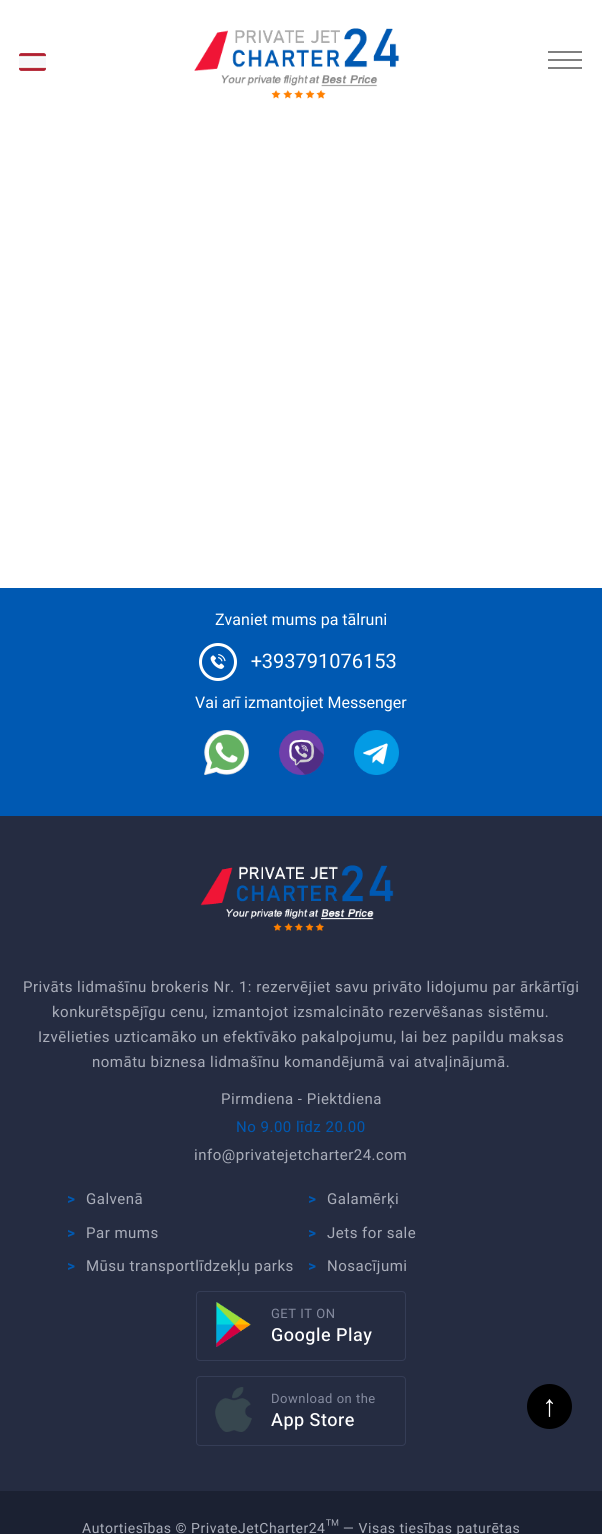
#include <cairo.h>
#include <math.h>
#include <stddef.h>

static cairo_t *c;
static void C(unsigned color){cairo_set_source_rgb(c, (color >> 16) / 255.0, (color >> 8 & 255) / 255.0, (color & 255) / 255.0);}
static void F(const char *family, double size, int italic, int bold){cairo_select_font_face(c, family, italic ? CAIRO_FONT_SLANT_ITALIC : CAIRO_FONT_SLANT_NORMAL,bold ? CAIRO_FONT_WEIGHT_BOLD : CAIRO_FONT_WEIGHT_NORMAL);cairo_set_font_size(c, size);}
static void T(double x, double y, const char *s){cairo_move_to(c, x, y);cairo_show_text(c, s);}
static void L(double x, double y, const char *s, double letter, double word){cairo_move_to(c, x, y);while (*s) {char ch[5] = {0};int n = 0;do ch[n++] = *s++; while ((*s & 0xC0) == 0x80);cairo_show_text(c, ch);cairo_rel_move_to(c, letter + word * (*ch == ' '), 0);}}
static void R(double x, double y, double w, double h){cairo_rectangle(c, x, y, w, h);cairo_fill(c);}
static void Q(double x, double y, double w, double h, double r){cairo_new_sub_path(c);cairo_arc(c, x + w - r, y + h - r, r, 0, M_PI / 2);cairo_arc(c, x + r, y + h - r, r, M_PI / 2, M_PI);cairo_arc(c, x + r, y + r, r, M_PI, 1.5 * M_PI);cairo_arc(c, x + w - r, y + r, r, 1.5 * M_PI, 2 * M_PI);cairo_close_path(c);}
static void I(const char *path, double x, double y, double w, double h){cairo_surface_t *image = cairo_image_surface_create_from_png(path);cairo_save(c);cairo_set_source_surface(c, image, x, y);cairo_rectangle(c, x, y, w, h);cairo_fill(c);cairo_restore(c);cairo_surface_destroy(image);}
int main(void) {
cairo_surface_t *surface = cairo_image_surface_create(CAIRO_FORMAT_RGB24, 602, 1534);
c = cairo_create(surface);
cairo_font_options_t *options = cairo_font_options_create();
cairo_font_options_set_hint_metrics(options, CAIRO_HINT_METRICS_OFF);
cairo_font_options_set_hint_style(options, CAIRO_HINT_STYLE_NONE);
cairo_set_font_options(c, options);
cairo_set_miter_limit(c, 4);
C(0xffffff);
cairo_paint(c);
I("1.png",19,53,27,18);
I("2.png",194,28,206,71);
C(0x808080);
R(548,59,34,2);
R(548,51,34,2);
R(548,67,34,2);
C(0x0059b2);
R(0,588,602,228);
F("Heebo",16,0,0);
C(0xffffff);
T(215,625,"Zvaniet mums pa tālruni");
cairo_new_path(c);
cairo_arc(c,218,662,17.5,0,2 * M_PI);
cairo_set_line_width(c,3);
cairo_stroke(c);
I("3.png",210,654,16,15);
F("Heebo",20,0,0);
T(251,668,"+393791076153");
F("Heebo",16,0,0);
T(195,708,"Vai arī izmantojiet Messenger");
I("4.png",204,730,45,45);
I("5.png",279,730,45,45);
I("6.png",354,730,45,45);
C(0x252c41);
R(0,816,602,675);
I("7.png",200,865,194,66);
F("Heebo",15,0,0);
C(0xa9adb9);
L(23,992,"Privāts lidmašīnu brokeris Nr. 1: rezervējiet savu privāto lidojumu par ārkārtīgi",.5,0);
L(52,1017,"konkurētspējīgu cenu, izmantojot izsmalcināto rezervēšanas sistēmu.",.5,0);
L(38,1042,"Izvēlieties uzticamāko un efektīvāko pakalpojumu, lai bez papildu maksas",.5,0);
L(92,1067,"nomātu biznesa lidmašīnu komandējumā vai atvaļinājumā.",.5,0);
L(221,1104,"Pirmdiena - Piektdiena",.5,0);
C(0x0059b2);
L(236,1132,"No 9.00 līdz 20.00",.5,0);
C(0xa9adb9);
L(194,1160,"info@privatejetcharter24.com",.5,0);
F("Heebo",15,0,1);
C(0x0059b2);
L(67,1204,">",.5,0);
F("Heebo",15,0,0);
C(0xa9adb9);
L(86,1204,"Galvenā",.5,0);
F("Heebo",15,0,1);
C(0x0059b2);
L(308,1204,">",.5,0);
F("Heebo",15,0,0);
C(0xa9adb9);
L(327,1204,"Galamērķi",.5,0);
F("Heebo",15,0,1);
C(0x0059b2);
L(67,1238,">",.5,0);
F("Heebo",15,0,0);
C(0xa9adb9);
L(86,1238,"Par mums",.5,0);
F("Heebo",15,0,1);
C(0x0059b2);
L(308,1238,">",.5,0);
F("Heebo",15,0,0);
C(0xa9adb9);
L(327,1238,"Jets for sale",.5,0);
F("Heebo",15,0,1);
C(0x0059b2);
L(67,1271,">",.5,0);
F("Heebo",15,0,0);
C(0xa9adb9);
L(86,1271,"Mūsu transportlīdzekļu parks",.5,0);
F("Heebo",15,0,1);
C(0x0059b2);
L(308,1271,">",.5,0);
F("Heebo",15,0,0);
C(0xa9adb9);
L(327,1271,"Nosacījumi",.5,0);
Q(196.5,1291.5,209,69,3.5);
C(0x353d56);
cairo_set_line_width(c,1);
cairo_stroke(c);
I("8.png",216,1302,35,45);
F("Heebo",13,0,0);
C(0x858b9f);
L(271,1318,"GET IT ON",.5,0);
F("Heebo Medium",18,0,0);
C(0xffffff);
L(271,1341,"Google Play",.5,0);
Q(196.5,1376.5,209,69,3.5);
C(0x353d56);
cairo_stroke(c);
I("9.png",215,1387,37,45);
F("Heebo",13,0,0);
C(0x858b9f);
L(271,1403,"Download on the",.5,0);
F("Heebo Medium",18,0,0);
C(0xffffff);
L(271,1426,"App Store",.5,0);
C(0x1b2132);
R(0,1491,602,43);
F("Heebo",14,0,0);
C(0xa9adb9);
L(82,1533,"Autortiesības © PrivateJetCharter24™ — Visas tiesības paturētas",.5,0);
C(0x000000);
cairo_new_path(c);
cairo_arc(c,549.5,1406.5,22.5,0,2 * M_PI);
cairo_fill(c);
F("Liberation Sans",30,0,0);
C(0xffffff);
T(542,1416,"↑");
cairo_surface_write_to_png(surface, "o.png");
cairo_font_options_destroy(options);
cairo_destroy(c);
cairo_surface_destroy(surface);
return 0;
}
